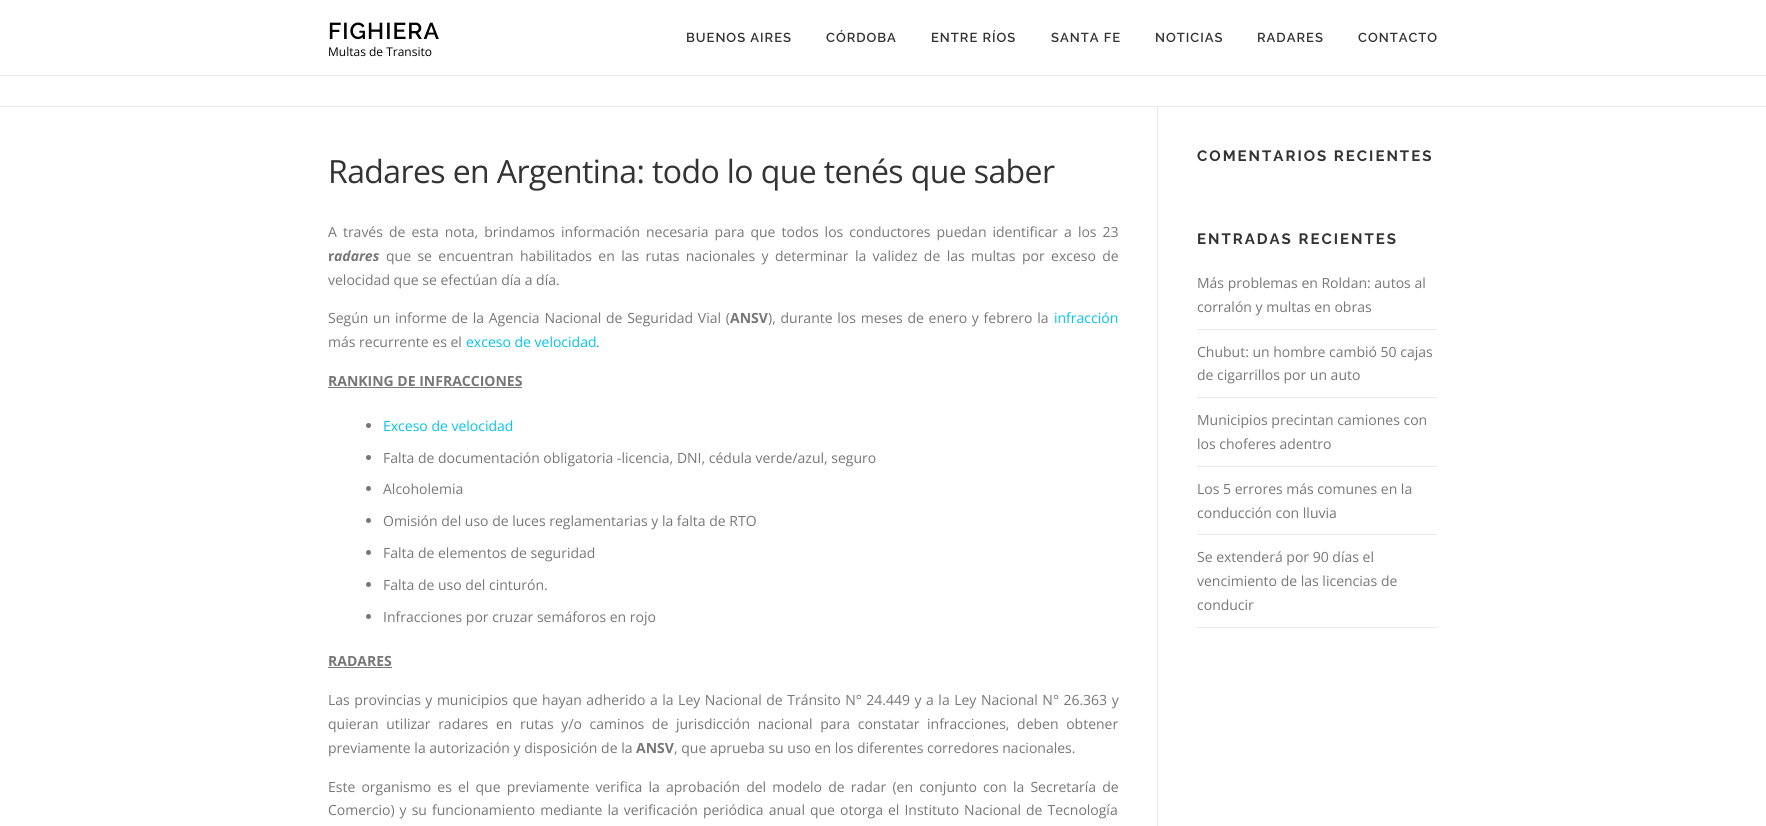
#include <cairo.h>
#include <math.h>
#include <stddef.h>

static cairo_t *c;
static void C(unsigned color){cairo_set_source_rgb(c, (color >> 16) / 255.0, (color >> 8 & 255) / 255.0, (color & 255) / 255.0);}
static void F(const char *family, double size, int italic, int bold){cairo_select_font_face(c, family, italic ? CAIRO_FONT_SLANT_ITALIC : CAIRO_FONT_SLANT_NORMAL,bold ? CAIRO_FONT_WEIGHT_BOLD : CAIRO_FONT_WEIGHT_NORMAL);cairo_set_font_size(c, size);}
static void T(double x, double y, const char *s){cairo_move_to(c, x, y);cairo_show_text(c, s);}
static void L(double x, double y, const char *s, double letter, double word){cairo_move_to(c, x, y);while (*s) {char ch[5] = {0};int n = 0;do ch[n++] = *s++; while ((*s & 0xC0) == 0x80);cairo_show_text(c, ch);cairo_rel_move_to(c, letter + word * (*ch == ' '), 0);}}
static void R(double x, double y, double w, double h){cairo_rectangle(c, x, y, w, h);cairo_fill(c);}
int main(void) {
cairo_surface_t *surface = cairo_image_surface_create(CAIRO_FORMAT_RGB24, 1766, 826);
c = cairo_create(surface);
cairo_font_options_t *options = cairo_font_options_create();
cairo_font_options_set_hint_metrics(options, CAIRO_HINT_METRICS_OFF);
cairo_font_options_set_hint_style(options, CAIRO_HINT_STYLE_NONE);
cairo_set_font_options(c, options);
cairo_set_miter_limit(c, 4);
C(0xffffff);
cairo_paint(c);
F("Raleway SemiBold",23,0,0);
C(0x000000);
L(328,39,"FIGHIERA",1,0);
F("Open Sans",12,0,0);
T(328,56,"Multas de Transito");
F("Raleway SemiBold",13,0,0);
C(0x333333);
L(686,42,"BUENOS AIRES",1,0);
L(826,42,"CÓRDOBA",1,0);
L(931,42,"ENTRE RÍOS",1,0);
L(1051,42,"SANTA FE",1,0);
L(1155,42,"NOTICIAS",1,0);
L(1257,42,"RADARES",1,0);
L(1358,42,"CONTACTO",1,0);
C(0xe9e9e9);
R(0,75,1766,1);
R(0,106,1766,1);
R(1157,107,1,719);
F("Open Sans",32,0,0);
C(0x333333);
L(328,183,"Radares en Argentina: todo lo que tenés que saber",-.6,0);
F("Open Sans",14,0,0);
C(0x777777);
L(328,237,"A través de esta nota, brindamos información necesaria para que todos los conductores puedan identificar a los 23",0,2.4);
F("Open Sans",14,0,1);
T(328,261,"r");
F("Open Sans",14,1,1);
T(334,261,"adares");
F("Open Sans",14,0,0);
L(386,261,"que se encuentran habilitados en las rutas nacionales y determinar la validez de las multas por exceso de",0,2.75);
T(328,285,"velocidad que se efectúan día a día.");
L(328,323,"Según un informe de la Agencia Nacional de Seguridad Vial (",0,1.1);
F("Open Sans",14,0,1);
T(730,323,"ANSV");
F("Open Sans",14,0,0);
L(768,323,"), durante los meses de enero y febrero la",0,1.1);
C(0x03c4eb);
T(1054,323,"infracción");
C(0x777777);
T(328,347,"más recurrente es el");
C(0x03c4eb);
T(466,347,"exceso de velocidad");
C(0x777777);
T(596,347,".");
F("Open Sans",14,0,1);
T(328,386,"RANKING DE INFRACCIONES");
R(328,387,194,1);
cairo_new_path(c);
cairo_arc(c,368.5,425.5,2.5,0,2 * M_PI);
cairo_fill(c);
F("Open Sans",14,0,0);
C(0x03c4eb);
T(383,431,"Exceso de velocidad");
C(0x777777);
cairo_new_path(c);
cairo_arc(c,368.5,457.5,2.5,0,2 * M_PI);
cairo_fill(c);
T(383,463,"Falta de documentación obligatoria -licencia, DNI, cédula verde/azul, seguro");
cairo_new_path(c);
cairo_arc(c,368.5,488.5,2.5,0,2 * M_PI);
cairo_fill(c);
T(383,494,"Alcoholemia");
cairo_new_path(c);
cairo_arc(c,368.5,520.5,2.5,0,2 * M_PI);
cairo_fill(c);
T(383,526,"Omisión del uso de luces reglamentarias y la falta de RTO");
cairo_new_path(c);
cairo_arc(c,368.5,552.5,2.5,0,2 * M_PI);
cairo_fill(c);
T(383,558,"Falta de elementos de seguridad");
cairo_new_path(c);
cairo_arc(c,368.5,584.5,2.5,0,2 * M_PI);
cairo_fill(c);
T(383,590,"Falta de uso del cinturón.");
cairo_new_path(c);
cairo_arc(c,368.5,616.5,2.5,0,2 * M_PI);
cairo_fill(c);
T(383,622,"Infracciones por cruzar semáforos en rojo");
F("Open Sans",14,0,1);
T(328,666,"RADARES");
R(328,667,64,1);
F("Open Sans",14,0,0);
L(328,705,"Las provincias y municipios que hayan adherido a la Ley Nacional de Tránsito N° 24.449 y a la Ley Nacional N° 26.363 y",0,.9);
L(328,729,"quieran utilizar radares en rutas y/o caminos de jurisdicción nacional para constatar infracciones, deben obtener",0,4);
T(328,753,"previamente la autorización y disposición de la");
F("Open Sans",14,0,1);
T(636,753,"ANSV");
F("Open Sans",14,0,0);
T(674,753,", que aprueba su uso en los diferentes corredores nacionales.");
L(328,792,"Este organismo es el que previamente verifica la aprobación del modelo de radar (en conjunto con la Secretaría de",0,2.5);
L(328,815,"Comercio) y su funcionamiento mediante la verificación periódica anual que otorga el Instituto Nacional de Tecnología",0,1.4);
F("Raleway",15,0,1);
C(0x333333);
L(1197,161,"COMENTARIOS RECIENTES",2,0);
L(1197,244,"ENTRADAS RECIENTES",2,0);
C(0xe9e9e9);
R(1197,329,240,1);
F("Open Sans",14,0,0);
C(0x777777);
T(1197,288,"Más problemas en Roldan: autos al");
T(1197,312,"corralón y multas en obras");
C(0xe9e9e9);
R(1197,397,240,1);
C(0x777777);
T(1197,357,"Chubut: un hombre cambió 50 cajas");
T(1197,380,"de cigarrillos por un auto");
C(0xe9e9e9);
R(1197,466,240,1);
C(0x777777);
T(1197,425,"Municipios precintan camiones con");
T(1197,449,"los choferes adentro");
C(0xe9e9e9);
R(1197,534,240,1);
C(0x777777);
T(1197,494,"Los 5 errores más comunes en la");
T(1197,518,"conducción con lluvia");
C(0xe9e9e9);
R(1197,627,240,1);
C(0x777777);
T(1197,562,"Se extenderá por 90 días el");
T(1197,586,"vencimiento de las licencias de");
T(1197,610,"conducir");
cairo_surface_write_to_png(surface, "o.png");
cairo_font_options_destroy(options);
cairo_destroy(c);
cairo_surface_destroy(surface);
return 0;
}
